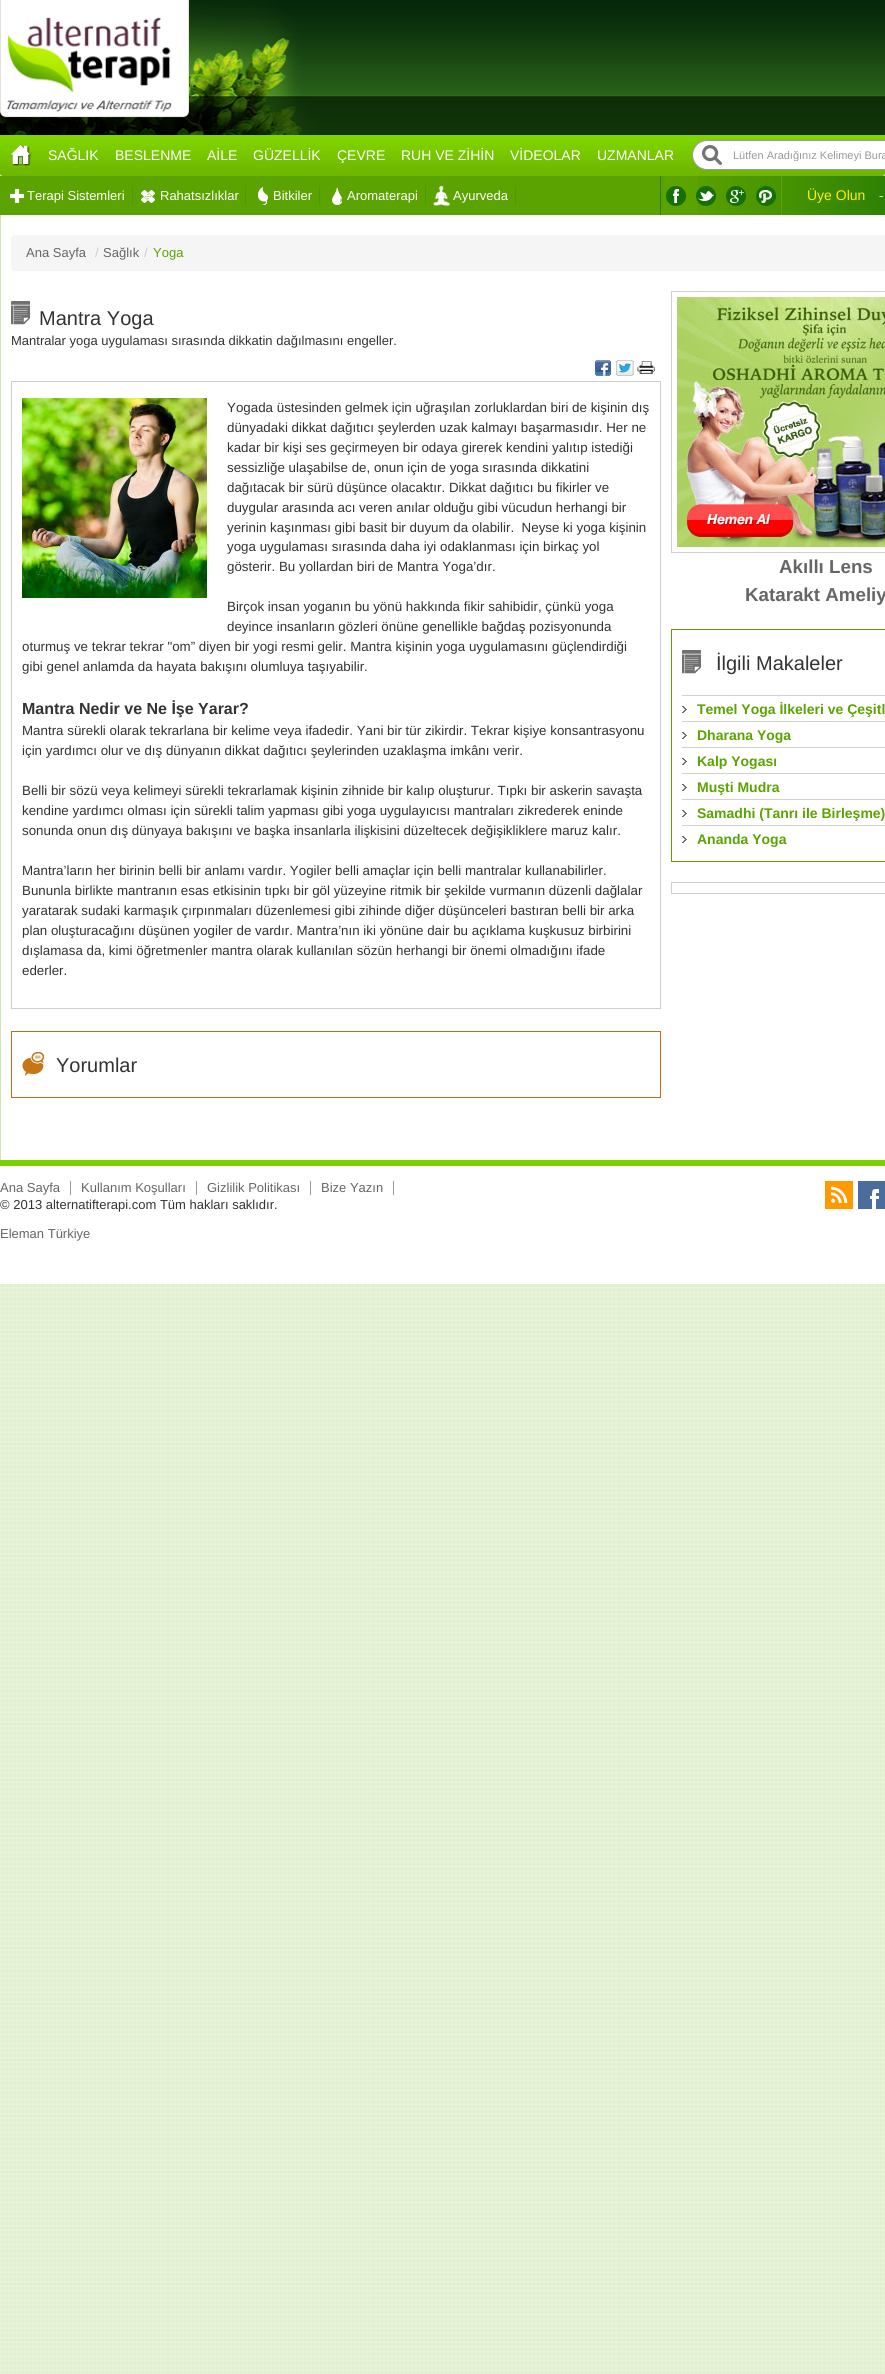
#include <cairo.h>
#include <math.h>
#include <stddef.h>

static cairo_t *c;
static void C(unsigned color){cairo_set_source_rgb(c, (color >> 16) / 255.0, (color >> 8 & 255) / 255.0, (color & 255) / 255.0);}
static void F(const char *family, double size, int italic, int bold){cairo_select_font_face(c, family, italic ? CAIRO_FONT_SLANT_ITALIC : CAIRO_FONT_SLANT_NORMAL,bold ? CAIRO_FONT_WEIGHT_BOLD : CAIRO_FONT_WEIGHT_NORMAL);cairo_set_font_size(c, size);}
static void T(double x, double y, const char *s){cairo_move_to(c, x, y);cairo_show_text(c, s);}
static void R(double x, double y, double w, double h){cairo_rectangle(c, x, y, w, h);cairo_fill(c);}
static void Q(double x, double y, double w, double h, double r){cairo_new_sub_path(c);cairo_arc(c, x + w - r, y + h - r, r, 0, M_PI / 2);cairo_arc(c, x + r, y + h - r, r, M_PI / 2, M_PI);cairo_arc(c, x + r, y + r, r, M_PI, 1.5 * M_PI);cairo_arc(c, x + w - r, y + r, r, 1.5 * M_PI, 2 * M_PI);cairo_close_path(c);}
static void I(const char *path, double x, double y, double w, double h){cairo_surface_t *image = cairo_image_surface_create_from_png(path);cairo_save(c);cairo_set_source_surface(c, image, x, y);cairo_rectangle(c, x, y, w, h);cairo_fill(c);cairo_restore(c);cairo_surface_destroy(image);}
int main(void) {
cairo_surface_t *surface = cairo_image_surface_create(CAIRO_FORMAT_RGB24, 885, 2374);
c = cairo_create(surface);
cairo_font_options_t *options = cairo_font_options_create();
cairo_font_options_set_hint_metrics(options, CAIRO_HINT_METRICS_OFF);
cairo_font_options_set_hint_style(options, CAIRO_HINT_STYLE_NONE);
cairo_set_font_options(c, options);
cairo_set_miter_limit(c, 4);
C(0xffffff);
cairo_paint(c);
I("1.png",0,173,885,2201);
I("2.png",0,135,885,41);
I("3.png",0,0,885,135);
I("4.png",0,0,189,118);
I("5.png",11,145,21,21);
F("Liberation Sans",14,0,0);
C(0xffffff);
T(48,160,"SAĞLIK");
T(115,160,"BESLENME");
T(207,160,"AİLE");
T(253,160,"GÜZELLİK");
T(337,160,"ÇEVRE");
T(401,160,"RUH VE ZİHİN");
T(510,160,"VİDEOLAR");
T(597,160,"UZMANLAR");
Q(692.5,140.5,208,29,14.5);
cairo_fill_preserve(c);
C(0x999999);
cairo_set_line_width(c,1);
cairo_stroke(c);
I("6.png",702,145,20,20);
cairo_save(c);
cairo_rectangle(c,733,149,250,12);
cairo_clip(c);
F("Liberation Sans",11,0,0);
T(733,159,"Lütfen Aradığınız Kelimeyi Bura");
cairo_restore(c);
C(0x5ba300);
R(0,176,698,39);
C(0x539701);
R(132,186,1,19);
I("7.png",10,189,14,14);
F("Liberation Sans",13,0,0);
C(0xffffff);
T(27,200,"Terapi Sistemleri");
C(0x539701);
R(245,186,1,19);
I("8.png",141,190,14,13);
C(0xffffff);
T(160,200,"Rahatsızlıklar");
C(0x539701);
R(319,186,1,19);
I("9.png",258,187,10,18);
C(0xffffff);
T(273,200,"Bitkiler");
C(0x539701);
R(425,186,1,19);
I("10.png",332,187,10,18);
C(0xffffff);
T(347,200,"Aromaterapi");
C(0x539701);
R(515,186,1,19);
I("11.png",433,186,18,20);
C(0xffffff);
T(453,200,"Ayurveda");
I("12.png",698,176,187,39);
C(0x2c7f05);
R(660,176,1,39);
I("13.png",666,186,20,20);
I("14.png",696,186,20,20);
I("15.png",726,186,20,20);
C(0x5ba300);
R(781,176,1,39);
I("16.png",756,186,20,20);
F("Liberation Sans",14,0,0);
C(0xfff000);
T(807,200,"Üye Olun");
F("Liberation Sans",13,0,0);
C(0xffffff);
T(879,200,"-");
R(1,215,884,945);
C(0xcee6af);
R(0,215,1,945);
C(0xf5f5f5);
Q(11,235,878,36,4);
cairo_fill(c);
C(0x666666);
T(26,257,"Ana Sayfa");
C(0xcccccc);
T(95,257,"/");
C(0x666666);
T(103,257,"Sağlık");
C(0xcccccc);
T(144,257,"/");
C(0x5ba300);
T(153,257,"Yoga");
I("17.png",11,301,19,24);
F("Liberation Sans",20,0,0);
C(0x333333);
T(39,325,"Mantra Yoga");
F("Liberation Sans",13,0,0);
T(11,345,"Mantralar yoga uygulaması sırasında dikkatin dağılmasını engeller.");
I("18.png",595,360,16,16);
I("19.png",616,360,18,16);
I("20.png",637,361,18,13);
cairo_rectangle(c,11.5,381.5,649,627);
C(0xccd0d2);
cairo_stroke(c);
I("21.png",22,398,185,200);
F("Liberation Sans",13.35,0,0);
C(0x333333);
T(227,412,"Yogada üstesinden gelmek için uğraşılan zorluklardan biri de kişinin dış");
T(227,432,"dünyadaki dikkat dağıtıcı şeylerden uzak kalmayı başarmasıdır. Her ne");
T(227,452,"kadar bir kişi ses geçirmeyen bir odaya girerek kendini yalıtıp istediği");
T(227,472,"sessizliğe ulaşabilse de, onun için de yoga sırasında dikkatini");
T(227,492,"dağıtacak bir sürü düşünce olacaktır. Dikkat dağıtıcı bu fikirler ve");
T(227,512,"duygular arasında acı veren anılar olduğu gibi vücudun herhangi bir");
T(227,532,"yerinin kaşınması gibi basit bir duyum da olabilir.  Neyse ki yoga kişinin");
T(227,551,"yoga uygulaması sırasında daha iyi odaklanması için birkaç yol");
T(227,571,"gösterir. Bu yollardan biri de Mantra Yoga’dır.");
T(227,611,"Birçok insan yoganın bu yönü hakkında fikir sahibidir, çünkü yoga");
T(227,631,"deyince insanların gözleri önüne genellikle bağdaş pozisyonunda");
T(22,651,"oturmuş ve tekrar tekrar \"om” diyen bir yogi resmi gelir. Mantra kişinin yoga uygulamasını güçlendirdiği");
T(22,671,"gibi genel anlamda da hayata bakışını olumluya taşıyabilir.");
F("Liberation Sans",16,0,1);
T(22,714,"Mantra Nedir ve Ne İşe Yarar?");
F("Liberation Sans",13.35,0,0);
T(22,735,"Mantra sürekli olarak tekrarlana bir kelime veya ifadedir. Yani bir tür zikirdir. Tekrar kişiye konsantrasyonu");
T(22,755,"için yardımcı olur ve dış dünyanın dikkat dağıtıcı şeylerinden uzaklaşma imkânı verir.");
T(22,795,"Belli bir sözü veya kelimeyi sürekli tekrarlamak kişinin zihnide bir kalıp oluşturur. Tıpkı bir askerin savaşta");
T(22,815,"kendine yardımcı olması için sürekli talim yapması gibi yoga uygulayıcısı mantraları zikrederek eninde");
T(22,835,"sonunda onun dış dünyaya bakışını ve başka insanlarla ilişkisini düzeltecek değişikliklere maruz kalır.");
T(22,875,"Mantra’ların her birinin belli bir anlamı vardır. Yogiler belli amaçlar için belli mantralar kullanabilirler.");
T(22,895,"Bununla birlikte mantranın esas etkisinin tıpkı bir göl yüzeyine ritmik bir şekilde vurmanın düzenli dağlalar");
T(22,915,"yaratarak sudaki karmaşık çırpınmaları düzenlemesi gibi zihinde diğer düşünceleri bastıran belli bir arka");
T(22,935,"plan oluşturacağını düşünen yogiler de vardır. Mantra’nın iki yönüne dair bu açıklama kuşkusuz birbirini");
T(22,955,"dışlamasa da, kimi öğretmenler mantra olarak kullanılan sözün herhangi bir önemi olmadığını ifade");
T(22,975,"ederler.");
cairo_rectangle(c,11.5,1031.5,649,66);
C(0xc26c18);
cairo_stroke(c);
I("22.png",22,1052,22,24);
F("Liberation Sans",20,0,0);
C(0x333333);
T(56,1072,"Yorumlar");
cairo_rectangle(c,671.5,291.5,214,261);
C(0xccd0d2);
cairo_stroke(c);
I("23.png",677,297,208,250);
F("Liberation Sans",18.75,0,1);
C(0x666666);
T(779,573,"Akıllı Lens");
T(745,601,"Katarakt Ameliy");
cairo_rectangle(c,671.5,629.5,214,232);
C(0x5ba300);
cairo_stroke(c);
I("17.png",682,650,19,24);
F("Liberation Sans",20,0,0);
C(0x333333);
T(716,670,"İlgili Makaleler");
I("24.png",682,706,5,7);
C(0xd1d1d1);
R(682,695,203,1);
F("Liberation Sans",14,0,1);
C(0x5ba300);
T(697,714,"Temel Yoga İlkeleri ve Çeşitl");
I("24.png",682,732,5,7);
C(0xd1d1d1);
R(682,721,203,1);
C(0x5ba300);
T(697,740,"Dharana Yoga");
I("24.png",682,758,5,7);
C(0xd1d1d1);
R(682,747,203,1);
C(0x5ba300);
T(697,766,"Kalp Yogası");
I("24.png",682,784,5,7);
C(0xd1d1d1);
R(682,773,203,1);
C(0x5ba300);
T(697,792,"Muşti Mudra");
I("24.png",682,810,5,7);
C(0xd1d1d1);
R(682,799,203,1);
C(0x5ba300);
T(697,818,"Samadhi (Tanrı ile Birleşme)");
I("24.png",682,836,5,7);
C(0xd1d1d1);
R(682,825,203,1);
C(0x5ba300);
T(697,844,"Ananda Yoga");
cairo_rectangle(c,671.5,882.5,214,11);
C(0xccd0d2);
cairo_stroke(c);
C(0xffffff);
R(0,1166,885,118);
C(0x7dd000);
R(0,1160,885,6);
C(0x999999);
R(70,1181,1,14);
F("Liberation Sans",13,0,0);
C(0x666666);
T(0,1192,"Ana Sayfa");
C(0x999999);
R(196,1181,1,14);
C(0x666666);
T(81,1192,"Kullanım Koşulları");
C(0x999999);
R(310,1181,1,14);
C(0x666666);
T(207,1192,"Gizlilik Politikası");
C(0x999999);
R(393,1181,1,14);
C(0x666666);
T(321,1192,"Bize Yazın");
C(0x333333);
T(0,1209,"© 2013 alternatifterapi.com Tüm hakları saklıdır.");
I("25.png",825,1181,28,28);
I("26.png",858,1181,27,28);
C(0x666666);
T(0,1238,"Eleman Türkiye");
cairo_surface_write_to_png(surface, "o.png");
cairo_font_options_destroy(options);
cairo_destroy(c);
cairo_surface_destroy(surface);
return 0;
}
